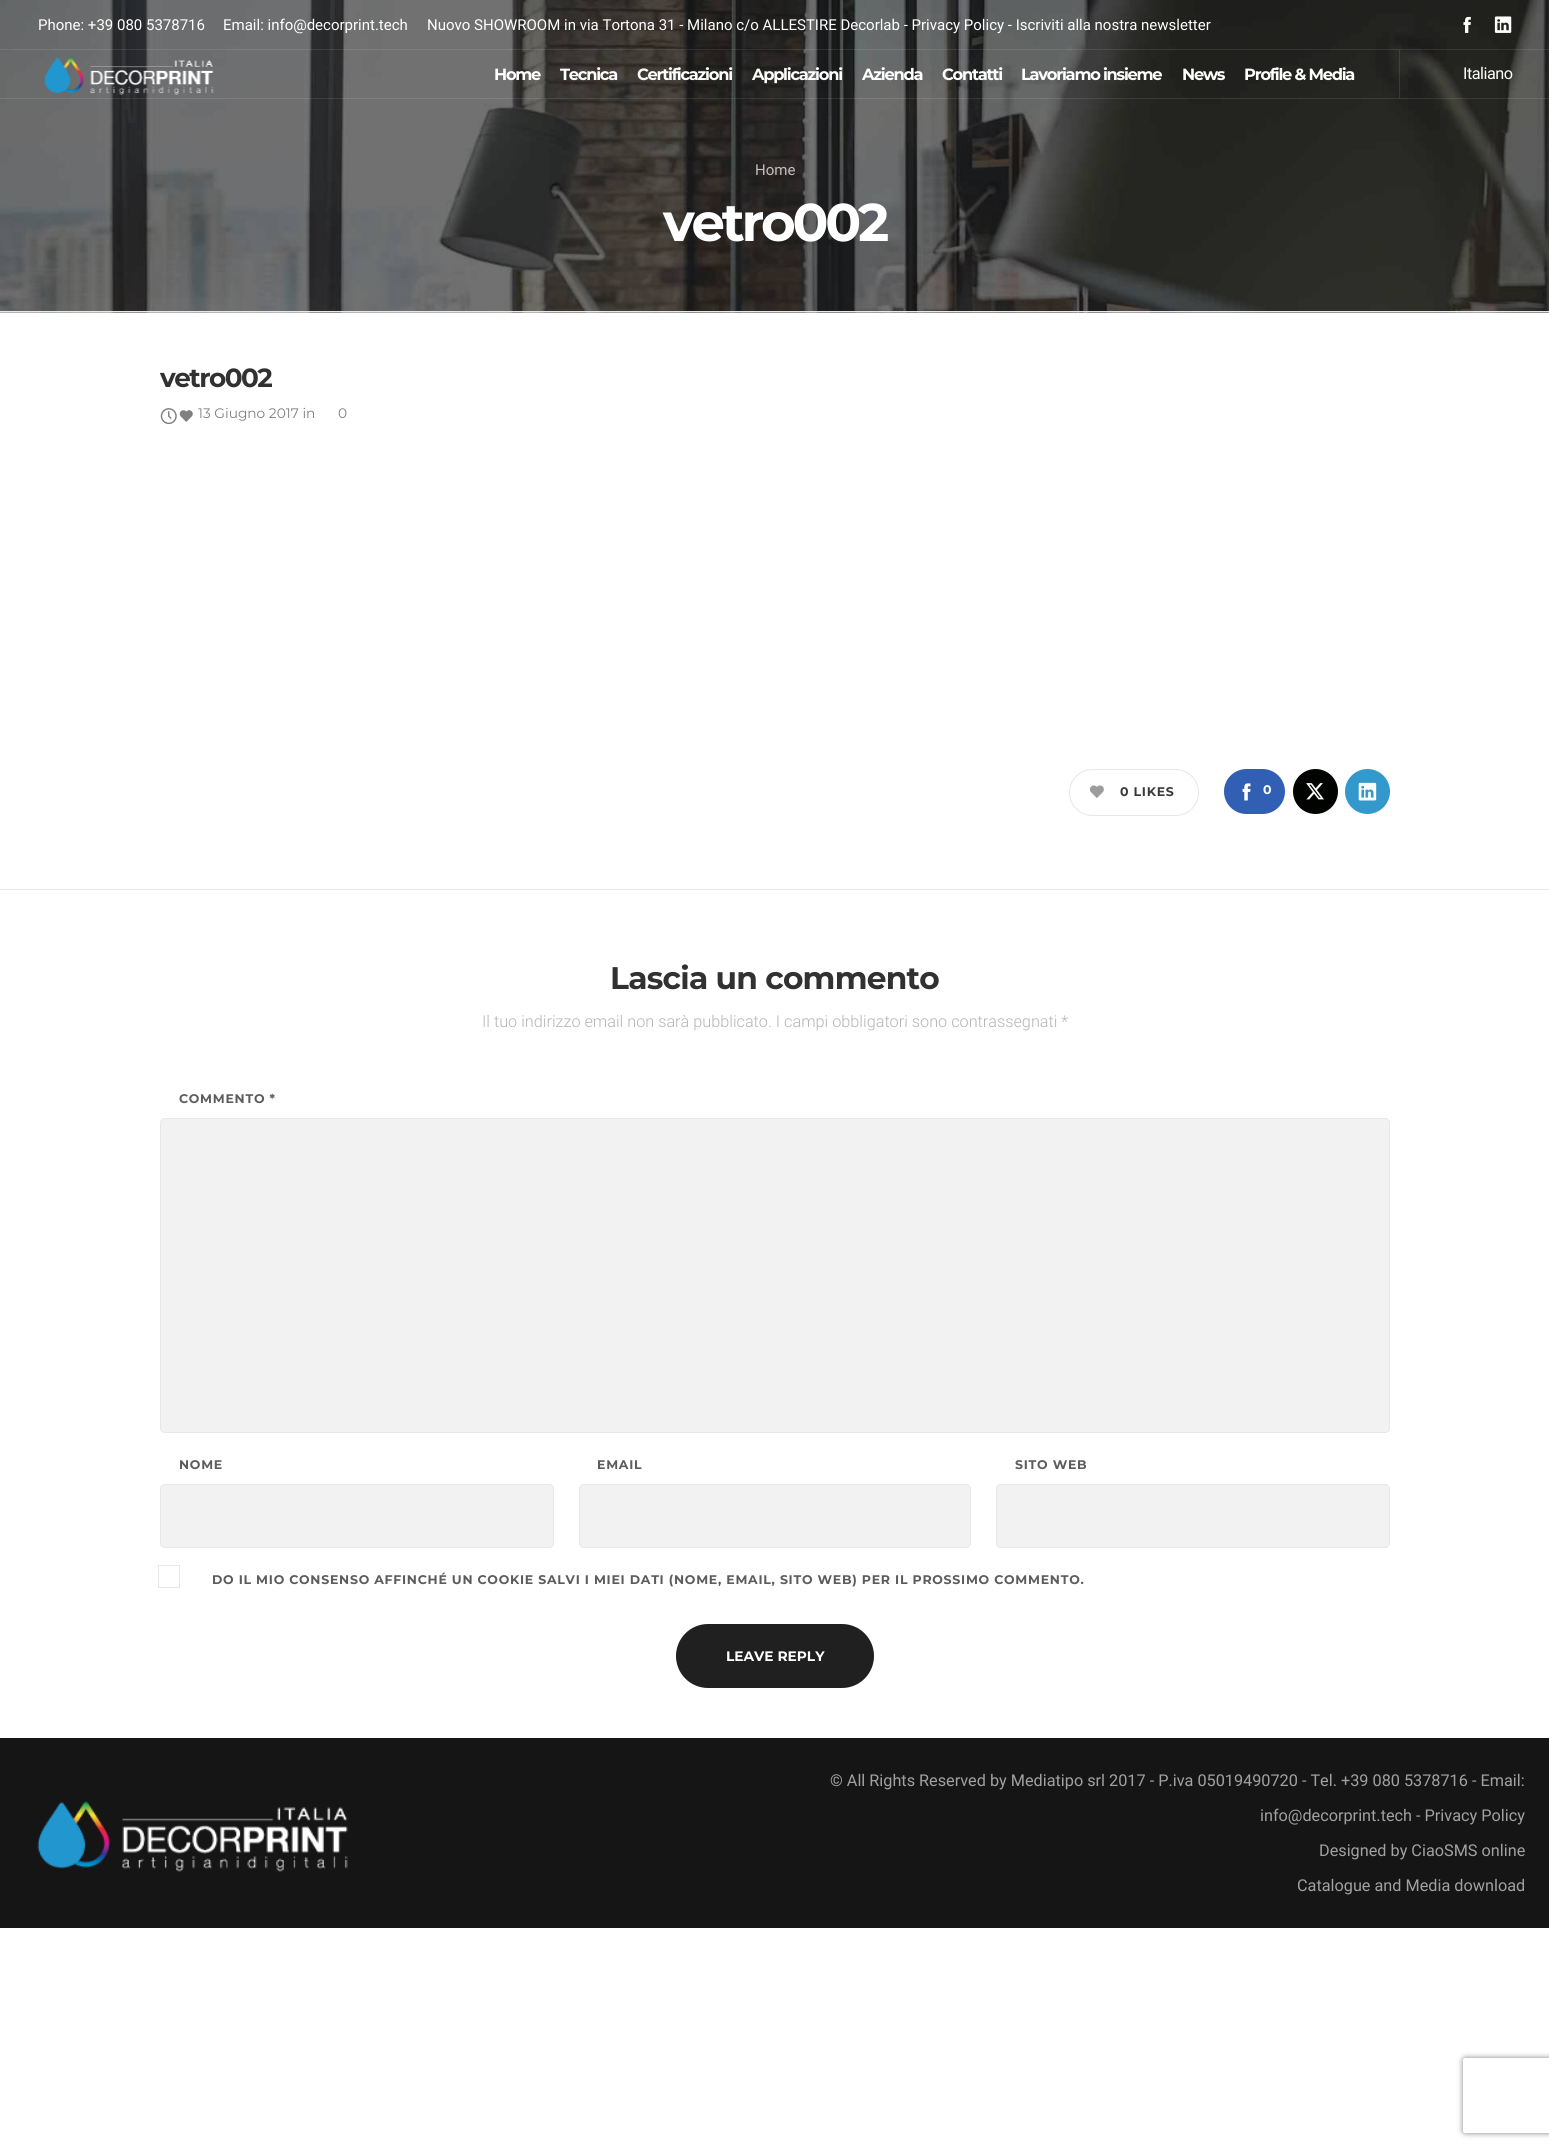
#include <cairo.h>
#include <math.h>
#include <stddef.h>

static cairo_t *c;
static void C(unsigned color){cairo_set_source_rgb(c, (color >> 16) / 255.0, (color >> 8 & 255) / 255.0, (color & 255) / 255.0);}
static void F(const char *family, double size, int italic, int bold){cairo_select_font_face(c, family, italic ? CAIRO_FONT_SLANT_ITALIC : CAIRO_FONT_SLANT_NORMAL,bold ? CAIRO_FONT_WEIGHT_BOLD : CAIRO_FONT_WEIGHT_NORMAL);cairo_set_font_size(c, size);}
static void T(double x, double y, const char *s){cairo_move_to(c, x, y);cairo_show_text(c, s);}
static void L(double x, double y, const char *s, double letter, double word){cairo_move_to(c, x, y);while (*s) {char ch[5] = {0};int n = 0;do ch[n++] = *s++; while ((*s & 0xC0) == 0x80);cairo_show_text(c, ch);cairo_rel_move_to(c, letter + word * (*ch == ' '), 0);}}
static void R(double x, double y, double w, double h){cairo_rectangle(c, x, y, w, h);cairo_fill(c);}
static void Q(double x, double y, double w, double h, double r){cairo_new_sub_path(c);cairo_arc(c, x + w - r, y + h - r, r, 0, M_PI / 2);cairo_arc(c, x + r, y + h - r, r, M_PI / 2, M_PI);cairo_arc(c, x + r, y + r, r, M_PI, 1.5 * M_PI);cairo_arc(c, x + w - r, y + r, r, 1.5 * M_PI, 2 * M_PI);cairo_close_path(c);}
static void S(double x, double y, double w, double h, double r, double blur, double alpha){cairo_push_group_with_content(c, CAIRO_CONTENT_ALPHA);cairo_set_operator(c, CAIRO_OPERATOR_SOURCE);for (int i = 15; i >= -15 && fmin(w, h) + blur * i / 3 > 0; i -= 2) {double e = blur * i / 6;cairo_set_source_rgba(c, 0, 0, 0, alpha * erfc((i - 1) / 8.5) / 2);Q(x - e, y - e, w + 2 * e, h + 2 * e, fmax(0, fmin(r + e + blur * .6, fmin(w, h) / 2 + e)));cairo_fill(c);}cairo_pattern_t *soft = cairo_pop_group(c);cairo_mask(c, soft);cairo_pattern_destroy(soft);}
static void I(const char *path, double x, double y, double w, double h){cairo_surface_t *image = cairo_image_surface_create_from_png(path);cairo_save(c);cairo_set_source_surface(c, image, x, y);cairo_rectangle(c, x, y, w, h);cairo_fill(c);cairo_restore(c);cairo_surface_destroy(image);}
int main(void) {
cairo_surface_t *surface = cairo_image_surface_create(CAIRO_FORMAT_RGB24, 1549, 2149);
c = cairo_create(surface);
cairo_font_options_t *options = cairo_font_options_create();
cairo_font_options_set_hint_metrics(options, CAIRO_HINT_METRICS_OFF);
cairo_font_options_set_hint_style(options, CAIRO_HINT_STYLE_NONE);
cairo_set_font_options(c, options);
cairo_set_miter_limit(c, 4);
C(0xffffff);
cairo_paint(c);
I("4.png",0,0,1549,313);
cairo_set_source_rgba(c,1,1,1,0.1);
R(0,98,1549,1);
R(0,49,1549,1);
F("Roboto",15,0,0);
C(0xffffff);
T(38,30,"Phone: +39 080 5378716");
T(223,30,"Email: info@decorprint.tech");
T(427,30,"Nuovo SHOWROOM in via Tortona 31 - Milano c/o ALLESTIRE Decorlab - Privacy Policy - Iscriviti alla nostra newsletter");
I("1.png",1463,16,8,17);
I("2.png",1494,16,18,17);
I("3.png",44,57,170,38);
F("Montserrat",16.25,0,1);
L(494,80,"Home",-1.25,0);
L(560,80,"Tecnica",-1.25,0);
L(637,80,"Certificazioni",-1.25,0);
L(752,80,"Applicazioni",-1.25,0);
L(862,80,"Azienda",-1.25,0);
L(942,80,"Contatti",-1.25,0);
L(1021,80,"Lavoriamo insieme",-1.25,0);
L(1182,80,"News",-1.25,0);
L(1244,80,"Profile & Media",-1.25,0);
cairo_set_source_rgba(c,1,1,1,0.1);
R(1399,50,1,48);
F("Roboto",16.25,0,0);
C(0xffffff);
L(1463,79,"Italiano",-.5,0);
F("Roboto",15,0,0);
C(0xc0bebe);
T(755,175,"Home");
F("Montserrat",53,0,1);
C(0xffffff);
L(663,241,"vetro002",-3.25,0);
C(0xe7e7e7);
R(0,311,1549,1);
F("Montserrat",26.25,0,1);
C(0x313131);
L(160,387,"vetro002",-1.5,0);
I("5.png",160,408,17,17);
F("Montserrat",13.75,0,0);
C(0x808080);
T(198,418,"13 Giugno 2017 in");
I("6.png",179,410,14,12);
T(338,418,"0");
I("7.png",1089,785,15,13);
Q(1069.5,769.5,129,46,23);
C(0xe7e7e7);
cairo_set_line_width(c,1);
cairo_stroke(c);
F("Montserrat",12.5,0,1);
C(0x393939);
L(1120,796,"0 LIKES",.75,0);
C(0x305fb3);
Q(1224,769,61,45,22.5);
cairo_fill(c);
I("8.png",1242,783,9,18);
C(0xffffff);
L(1263,794,"0",.75,0);
C(0x010300);
cairo_new_path(c);
cairo_arc(c,1315.5,791.5,22.5,0,2 * M_PI);
cairo_fill(c);
I("9.png",1306,783,18,17);
C(0x3399cc);
cairo_arc(c,1367.5,791.5,22.5,0,2 * M_PI);
cairo_fill(c);
I("10.png",1358,782,19,19);
C(0xe7e7e7);
R(0,889,1549,1);
F("Montserrat",31.25,0,1);
C(0x313131);
L(610,989,"Lascia un commento",-.75,0);
F("Roboto Light",16.25,0,0);
C(0xb5b5b5);
T(482,1027,"Il tuo indirizzo email non sarà pubblicato. I campi obbligatori sono contrassegnati *");
F("Montserrat",12.5,0,1);
C(0x5c5c5c);
L(179,1103,"COMMENTO *",.75,0);
C(0xf2f2f2);
Q(160.5,1118.5,1229,314,4.5);
cairo_fill_preserve(c);
C(0xe7e7e7);
cairo_stroke(c);
C(0x5c5c5c);
L(179,1469,"NOME",.75,0);
C(0xf2f2f2);
Q(160.5,1484.5,393,63,4.5);
cairo_fill_preserve(c);
C(0xe7e7e7);
cairo_stroke(c);
C(0x5c5c5c);
L(597,1469,"EMAIL",.75,0);
C(0xf2f2f2);
Q(579.5,1484.5,391,63,4.5);
cairo_fill_preserve(c);
C(0xe7e7e7);
cairo_stroke(c);
C(0x5c5c5c);
L(1015,1469,"SITO WEB",.75,0);
C(0xf2f2f2);
Q(996.5,1484.5,393,63,4.5);
cairo_fill_preserve(c);
C(0xe7e7e7);
cairo_stroke(c);
cairo_rectangle(c,158.5,1565.5,21,22);
cairo_stroke(c);
C(0x5c5c5c);
L(212,1584,"DO IL MIO CONSENSO AFFINCHÉ UN COOKIE SALVI I MIEI DATI (NOME, EMAIL, SITO WEB) PER IL PROSSIMO COMMENTO.",.75,0);
C(0x202020);
Q(676,1624,198,64,32);
cairo_fill(c);
F("Montserrat",13.75,0,1);
C(0xffffff);
T(726,1661,"LEAVE REPLY");
C(0x151515);
R(0,1738,1549,190);
I("11.png",37,1801,311,71);
F("Roboto",16.25,0,0);
C(0xa1a1a1);
T(830,1786,"© All Rights Reserved by Mediatipo srl 2017 - P.iva 05019490720 - Tel. +39 080 5378716 - Email:");
T(1260,1821,"info@decorprint.tech - Privacy Policy");
T(1319,1856,"Designed by CiaoSMS online");
T(1297,1891,"Catalogue and Media download");
cairo_save(c);
cairo_set_fill_rule(c,CAIRO_FILL_RULE_EVEN_ODD);
cairo_new_path(c);
cairo_move_to(c,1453,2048);
cairo_line_to(c,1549,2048);
cairo_line_to(c,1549,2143);
cairo_line_to(c,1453,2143);
cairo_close_path(c);
cairo_move_to(c,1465.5,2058);
cairo_line_to(c,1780.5,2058);
cairo_curve_to(c,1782,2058,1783,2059,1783,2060.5);
cairo_line_to(c,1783,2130.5);
cairo_curve_to(c,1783,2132,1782,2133,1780.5,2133);
cairo_line_to(c,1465.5,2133);
cairo_curve_to(c,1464,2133,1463,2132,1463,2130.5);
cairo_line_to(c,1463,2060.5);
cairo_curve_to(c,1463,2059,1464,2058,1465.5,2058);
cairo_close_path(c);
cairo_clip(c);
C(0x808080);
S(1463,2058,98,75,2.5,3,1);
cairo_restore(c);
cairo_surface_write_to_png(surface, "o.png");
cairo_font_options_destroy(options);
cairo_destroy(c);
cairo_surface_destroy(surface);
return 0;
}
